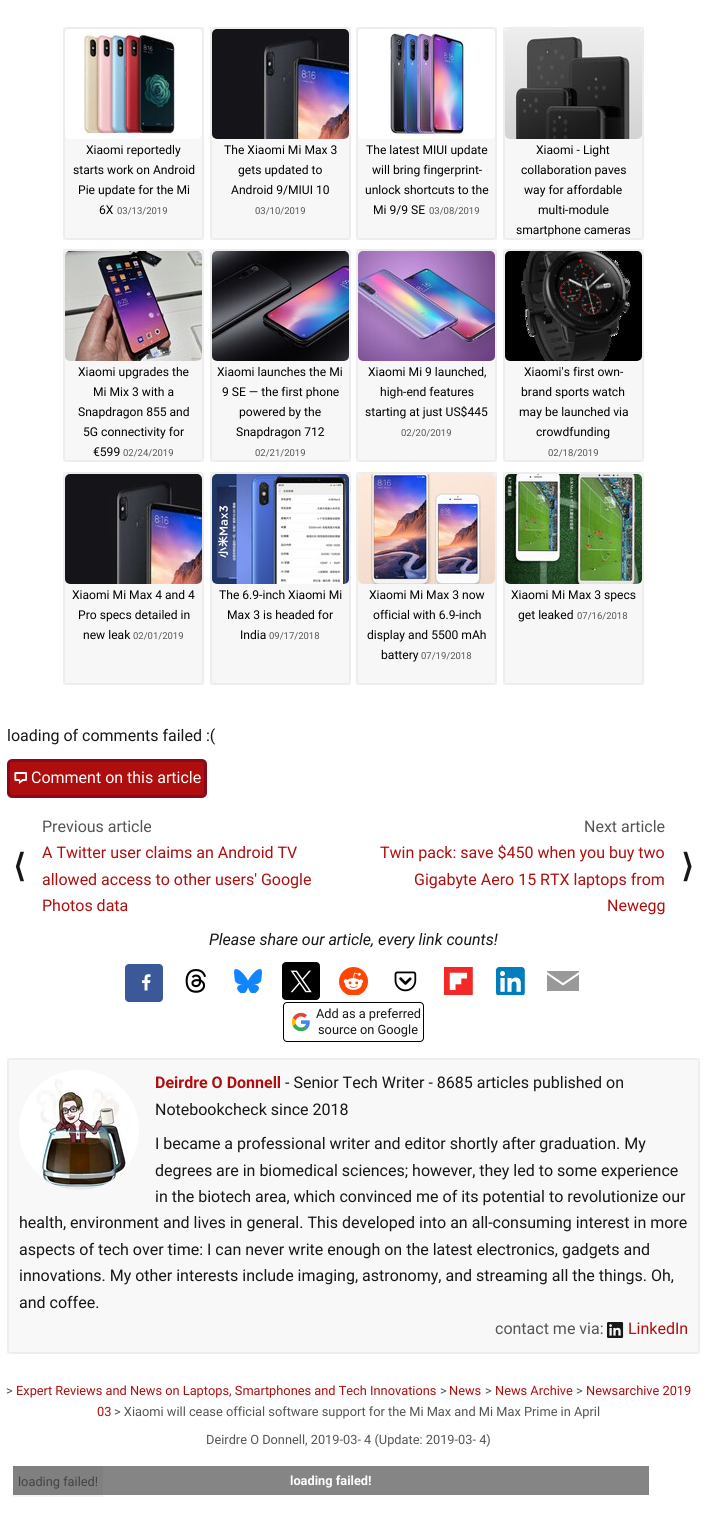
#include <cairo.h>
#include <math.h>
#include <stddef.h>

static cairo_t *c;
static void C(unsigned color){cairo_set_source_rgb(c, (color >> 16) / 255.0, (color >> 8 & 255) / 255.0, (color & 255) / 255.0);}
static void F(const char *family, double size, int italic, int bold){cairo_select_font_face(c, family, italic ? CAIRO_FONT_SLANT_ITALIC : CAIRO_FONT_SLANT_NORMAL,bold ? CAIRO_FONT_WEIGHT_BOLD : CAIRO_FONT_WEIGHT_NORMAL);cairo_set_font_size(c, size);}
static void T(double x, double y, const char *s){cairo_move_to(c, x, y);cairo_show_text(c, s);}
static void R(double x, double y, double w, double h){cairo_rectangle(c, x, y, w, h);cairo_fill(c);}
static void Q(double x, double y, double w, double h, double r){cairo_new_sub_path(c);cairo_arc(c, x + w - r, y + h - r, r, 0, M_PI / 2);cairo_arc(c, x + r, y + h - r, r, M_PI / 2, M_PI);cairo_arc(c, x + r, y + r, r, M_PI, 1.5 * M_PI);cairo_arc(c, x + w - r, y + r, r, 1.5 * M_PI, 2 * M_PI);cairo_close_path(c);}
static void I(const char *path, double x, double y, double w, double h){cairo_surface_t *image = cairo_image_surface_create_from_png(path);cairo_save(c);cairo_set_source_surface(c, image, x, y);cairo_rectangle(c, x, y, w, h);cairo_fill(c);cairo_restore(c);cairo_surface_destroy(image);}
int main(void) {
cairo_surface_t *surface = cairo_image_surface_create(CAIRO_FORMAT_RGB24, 707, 1522);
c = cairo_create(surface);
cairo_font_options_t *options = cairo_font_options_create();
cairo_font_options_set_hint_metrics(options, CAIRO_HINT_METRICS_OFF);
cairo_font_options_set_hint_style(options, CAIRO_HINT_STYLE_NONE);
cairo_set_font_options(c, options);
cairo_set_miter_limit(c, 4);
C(0xffffff);
cairo_paint(c);
C(0xf5f5f5);
R(13,1495,90,2);
C(0xf7f7f7);
Q(63,27,141,213,5);
cairo_fill(c);
cairo_rectangle(c,64,28,139,211);
cairo_set_source_rgba(c,0,0,0,0.04);
cairo_stroke(c);
I("1.png",65,29,137,110);
F("Roboto",12.1,0,0);
C(0x000000);
T(86,154,"Xiaomi reportedly");
T(73,174,"starts work on Android");
T(78,194,"Pie update for the Mi");
T(99,214,"6X");
F("Roboto",9.5,0,0);
C(0x555555);
T(117,214,"03/13/2019");
C(0xf7f7f7);
Q(210,27,141,213,5);
cairo_fill(c);
cairo_rectangle(c,211,28,139,211);
cairo_set_source_rgba(c,0,0,0,0.04);
cairo_stroke(c);
I("2.png",212,29,137,110);
F("Roboto",12.1,0,0);
C(0x000000);
T(224,154,"The Xiaomi Mi Max 3");
T(238,174,"gets updated to");
T(231,194,"Android 9/MIUI 10");
F("Roboto",9.5,0,0);
C(0x555555);
T(255,214,"03/10/2019");
C(0xf7f7f7);
Q(356,27,141,213,5);
cairo_fill(c);
cairo_rectangle(c,357,28,139,211);
cairo_set_source_rgba(c,0,0,0,0.04);
cairo_stroke(c);
I("3.png",358,29,137,110);
F("Roboto",12.1,0,0);
C(0x000000);
T(366,154,"The latest MIUI update");
T(372,174,"will bring fingerprint-");
T(365,194,"unlock shortcuts to the");
T(373,214,"Mi 9/9 SE");
F("Roboto",9.5,0,0);
C(0x555555);
T(429,214,"03/08/2019");
C(0xf7f7f7);
Q(503,27,141,213,5);
cairo_fill(c);
cairo_rectangle(c,504,28,139,211);
cairo_set_source_rgba(c,0,0,0,0.04);
cairo_stroke(c);
I("4.png",505,29,137,110);
F("Roboto",12.1,0,0);
C(0x000000);
T(536,154,"Xiaomi - Light");
T(521,174,"collaboration paves");
T(524,194,"way for affordable");
T(538,214,"multi-module");
T(516,234,"smartphone cameras");
C(0xf7f7f7);
Q(63,249,141,213,5);
cairo_fill(c);
cairo_rectangle(c,64,250,139,211);
cairo_set_source_rgba(c,0,0,0,0.04);
cairo_stroke(c);
I("5.png",65,251,137,110);
C(0x000000);
T(78,376,"Xiaomi upgrades the");
T(93,396,"Mi Mix 3 with a");
T(78,416,"Snapdragon 855 and");
T(83,436,"5G connectivity for");
T(93,456,"€599");
F("Roboto",9.5,0,0);
C(0x555555);
T(123,456,"02/24/2019");
C(0xf7f7f7);
Q(210,249,141,213,5);
cairo_fill(c);
cairo_rectangle(c,211,250,139,211);
cairo_set_source_rgba(c,0,0,0,0.04);
cairo_stroke(c);
I("6.png",212,251,137,110);
F("Roboto",12.1,0,0);
C(0x000000);
T(217,376,"Xiaomi launches the Mi");
T(222,396,"9 SE — the first phone");
T(239,416,"powered by the");
T(236,436,"Snapdragon 712");
F("Roboto",9.5,0,0);
C(0x555555);
T(255,456,"02/21/2019");
C(0xf7f7f7);
Q(356,249,141,213,5);
cairo_fill(c);
cairo_rectangle(c,357,250,139,211);
cairo_set_source_rgba(c,0,0,0,0.04);
cairo_stroke(c);
I("7.png",358,251,137,110);
F("Roboto",12.1,0,0);
C(0x000000);
T(368,376,"Xiaomi Mi 9 launched,");
T(380,396,"high-end features");
T(365,416,"starting at just US$445");
F("Roboto",9.5,0,0);
C(0x555555);
T(401,436,"02/20/2019");
C(0xf7f7f7);
Q(503,249,141,213,5);
cairo_fill(c);
cairo_rectangle(c,504,250,139,211);
cairo_set_source_rgba(c,0,0,0,0.04);
cairo_stroke(c);
I("8.png",505,251,137,110);
F("Roboto",12.1,0,0);
C(0x000000);
T(524,376,"Xiaomi's first own-");
T(521,396,"brand sports watch");
T(519,416,"may be launched via");
T(536,436,"crowdfunding");
F("Roboto",9.5,0,0);
C(0x555555);
T(548,456,"02/18/2019");
C(0xf7f7f7);
Q(63,472,141,213,5);
cairo_fill(c);
cairo_rectangle(c,64,473,139,211);
cairo_set_source_rgba(c,0,0,0,0.04);
cairo_stroke(c);
I("2.png",65,474,137,110);
F("Roboto",12.1,0,0);
C(0x000000);
T(72,599,"Xiaomi Mi Max 4 and 4");
T(78,619,"Pro specs detailed in");
T(83,639,"new leak");
F("Roboto",9.5,0,0);
C(0x555555);
T(133,639,"02/01/2019");
C(0xf7f7f7);
Q(210,472,141,213,5);
cairo_fill(c);
cairo_rectangle(c,211,473,139,211);
cairo_set_source_rgba(c,0,0,0,0.04);
cairo_stroke(c);
I("9.png",212,474,137,110);
F("Roboto",12.1,0,0);
C(0x000000);
T(219,599,"The 6.9-inch Xiaomi Mi");
T(227,619,"Max 3 is headed for");
T(240,639,"India");
F("Roboto",9.5,0,0);
C(0x555555);
T(269,639,"09/17/2018");
C(0xf7f7f7);
Q(356,472,141,213,5);
cairo_fill(c);
cairo_rectangle(c,357,473,139,211);
cairo_set_source_rgba(c,0,0,0,0.04);
cairo_stroke(c);
I("10.png",358,474,137,110);
F("Roboto",12.1,0,0);
C(0x000000);
T(369,599,"Xiaomi Mi Max 3 now");
T(373,619,"official with 6.9-inch");
T(367,639,"display and 5500 mAh");
T(381,659,"battery");
F("Roboto",9.5,0,0);
C(0x555555);
T(421,659,"07/19/2018");
C(0xf7f7f7);
Q(503,472,141,213,5);
cairo_fill(c);
cairo_rectangle(c,504,473,139,211);
cairo_set_source_rgba(c,0,0,0,0.04);
cairo_stroke(c);
I("11.png",505,474,137,110);
F("Roboto",12.1,0,0);
C(0x000000);
T(511,599,"Xiaomi Mi Max 3 specs");
T(518,619,"get leaked");
F("Roboto",9.5,0,0);
C(0x555555);
T(577,619,"07/16/2018");
F("Roboto",16,0,0);
C(0x171717);
T(7,741,"loading of comments failed :(");
C(0xaf0e0e);
Q(8.5,760.5,197,36,3.5);
cairo_fill_preserve(c);
C(0x8a091a);
cairo_set_line_width(c,3);
cairo_stroke(c);
I("12.png",14,772,13,12);
C(0xffffff);
T(31,783,"Comment on this article");
F("DejaVu Sans",32,0,1);
C(0x171717);
T(13,877,"⟨");
F("Roboto",16,0,0);
C(0x555555);
T(42,832,"Previous article");
C(0xaf0e0e);
T(42,858,"A Twitter user claims an Android TV");
T(42,885,"allowed access to other users' Google");
T(42,911,"Photos data");
C(0x555555);
T(584,832,"Next article");
C(0xaf0e0e);
T(380,858,"Twin pack: save $450 when you buy two");
T(414,885,"Gigabyte Aero 15 RTX laptops from");
T(607,911,"Newegg");
F("DejaVu Sans",32,0,1);
C(0x171717);
T(681,877,"⟩");
F("Roboto",16,1,0);
T(209,945,"Please share our article, every link counts!");
C(0x3b5998);
Q(125,964,38,38,4);
cairo_fill(c);
I("13.png",142,974,9,17);
I("14.png",185,969,21,24);
I("15.png",234,969,28,24);
C(0x000000);
Q(282,962,38,38,4);
cairo_fill(c);
I("16.png",290,970,22,23);
I("17.png",339,967,29,28);
I("18.png",394,971,23,21);
I("19.png",444,967,29,28);
I("20.png",496,967,29,28);
C(0x999999);
cairo_new_path(c);
cairo_move_to(c,547,971);
cairo_line_to(c,547,991);
cairo_line_to(c,579,991);
cairo_line_to(c,579,971);
cairo_close_path(c);
cairo_move_to(c,563,985.5);
cairo_line_to(c,547,974.5);
cairo_line_to(c,547,972);
cairo_line_to(c,563,983);
cairo_line_to(c,579,972);
cairo_line_to(c,579,974.5);
cairo_fill(c);
Q(283.5,1002.5,140,39,3.5);
C(0x000000);
cairo_set_line_width(c,1);
cairo_stroke(c);
I("21.png",291,1012,19,20);
F("Roboto",12.8,0,0);
C(0x171717);
T(316,1018,"Add as a preferred");
T(318,1034,"source on Google");
C(0xf8f8f8);
Q(7,1058,693,296,5);
cairo_fill(c);
cairo_rectangle(c,8,1059,691,294);
cairo_set_source_rgba(c,0,0,0,0.04);
cairo_set_line_width(c,2);
cairo_stroke(c);
I("22.png",19,1070,120,120);
F("Roboto",16,0,1);
C(0xaf0e0e);
T(155,1088,"Deirdre O Donnell");
F("Roboto",16,0,0);
C(0x171717);
T(285,1088,"- Senior Tech Writer - 8685 articles published on");
T(155,1115,"Notebookcheck since 2018");
T(155,1149,"I became a professional writer and editor shortly after graduation. My");
T(155,1176,"degrees are in biomedical sciences; however, they led to some experience");
T(155,1202,"in the biotech area, which convinced me of its potential to revolutionize our");
T(19,1228,"health, environment and lives in general. This developed into an all-consuming interest in more");
T(19,1255,"aspects of tech over time: I can never write enough on the latest electronics, gadgets and");
T(19,1281,"innovations. My other interests include imaging, astronomy, and streaming all the things. Oh,");
T(19,1308,"and coffee.");
C(0x555555);
T(495,1334,"contact me via:");
I("23.png",607,1322,17,16);
C(0xaf0e0e);
T(628,1334,"LinkedIn");
F("Roboto",12.8,0,0);
C(0x555555);
T(6,1395,">");
C(0xaf0e0e);
T(16,1395,"Expert Reviews and News on Laptops, Smartphones and Tech Innovations");
C(0x555555);
T(440,1395,">");
C(0xaf0e0e);
T(449,1395,"News");
C(0x555555);
T(485,1395,">");
C(0xaf0e0e);
T(495,1395,"News Archive");
C(0x555555);
T(576,1395,">");
C(0xaf0e0e);
T(586,1395,"Newsarchive 2019");
T(97,1416,"03");
C(0x555555);
T(114,1416,"> Xiaomi will cease official software support for the Mi Max and Mi Max Prime in April");
T(206,1444,"Deirdre O Donnell, 2019-03- 4 (Update: 2019-03- 4)");
C(0x808080);
R(13,1466,90,29);
C(0x434343);
T(18,1486,"loading failed!");
C(0x858585);
R(103,1466,546,29);
F("Roboto",12.8,0,1);
C(0xffffff);
T(290,1485,"loading failed!");
cairo_surface_write_to_png(surface, "o.png");
cairo_font_options_destroy(options);
cairo_destroy(c);
cairo_surface_destroy(surface);
return 0;
}
